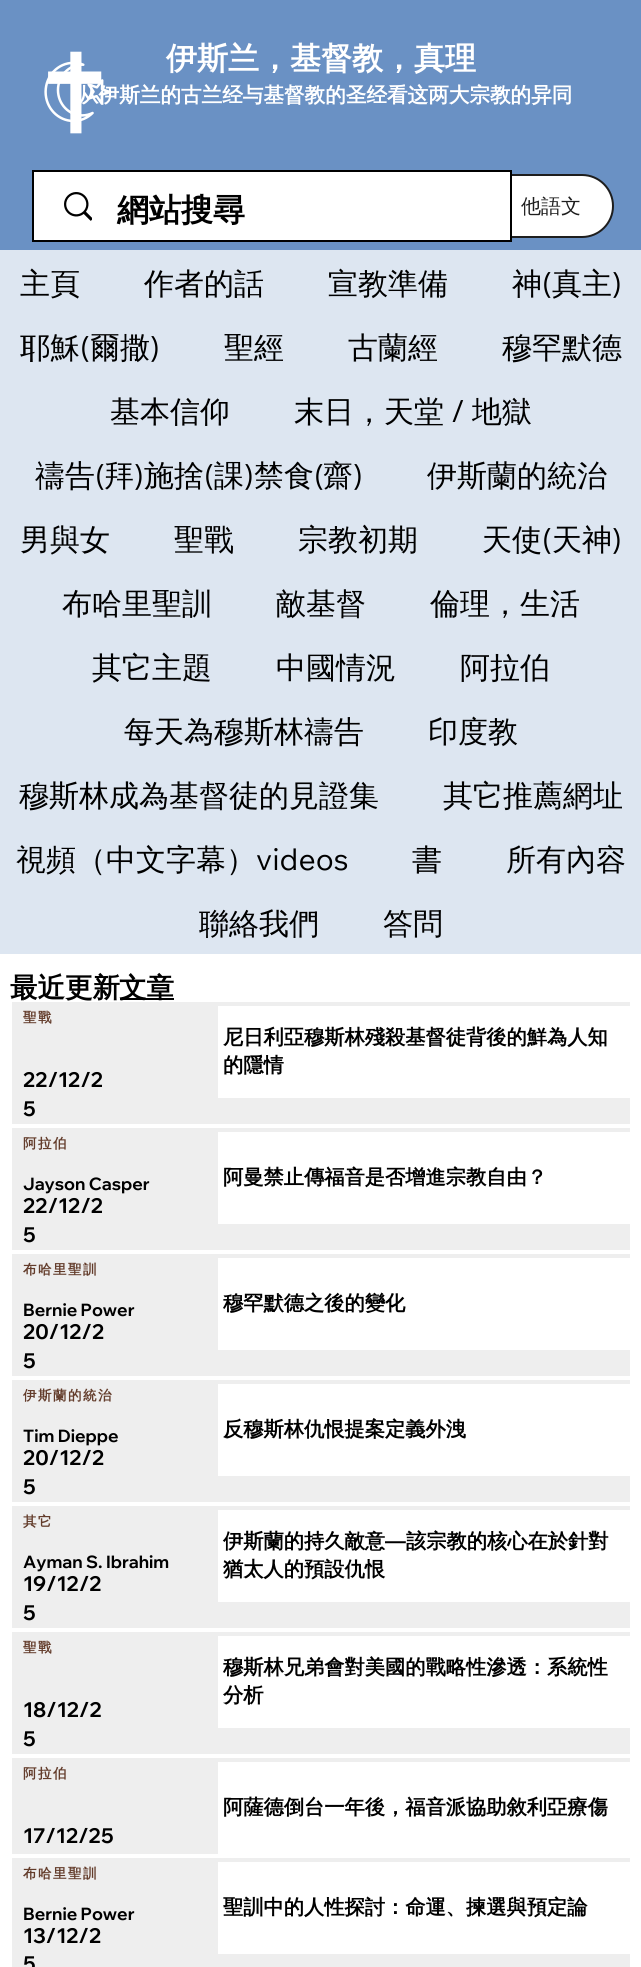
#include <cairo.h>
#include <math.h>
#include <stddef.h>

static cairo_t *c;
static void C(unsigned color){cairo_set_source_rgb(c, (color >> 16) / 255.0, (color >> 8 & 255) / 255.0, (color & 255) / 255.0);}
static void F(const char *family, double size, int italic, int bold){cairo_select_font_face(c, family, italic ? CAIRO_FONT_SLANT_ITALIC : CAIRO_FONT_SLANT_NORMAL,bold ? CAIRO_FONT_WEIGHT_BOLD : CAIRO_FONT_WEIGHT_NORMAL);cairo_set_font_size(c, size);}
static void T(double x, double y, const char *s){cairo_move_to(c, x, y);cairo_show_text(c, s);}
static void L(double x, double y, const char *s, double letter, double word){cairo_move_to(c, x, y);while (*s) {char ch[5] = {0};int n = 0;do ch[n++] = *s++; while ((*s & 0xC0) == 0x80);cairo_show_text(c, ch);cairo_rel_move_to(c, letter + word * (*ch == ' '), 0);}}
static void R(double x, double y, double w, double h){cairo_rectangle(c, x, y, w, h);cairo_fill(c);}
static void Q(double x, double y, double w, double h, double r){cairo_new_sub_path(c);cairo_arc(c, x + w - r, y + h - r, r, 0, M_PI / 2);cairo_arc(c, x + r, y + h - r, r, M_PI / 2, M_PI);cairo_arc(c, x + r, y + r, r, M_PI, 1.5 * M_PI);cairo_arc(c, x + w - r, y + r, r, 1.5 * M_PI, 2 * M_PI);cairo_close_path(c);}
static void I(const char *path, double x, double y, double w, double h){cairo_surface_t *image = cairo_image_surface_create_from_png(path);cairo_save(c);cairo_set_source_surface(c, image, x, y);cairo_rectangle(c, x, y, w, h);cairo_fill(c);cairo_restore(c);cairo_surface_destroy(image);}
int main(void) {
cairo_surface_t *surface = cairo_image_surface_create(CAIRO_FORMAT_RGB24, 641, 1967);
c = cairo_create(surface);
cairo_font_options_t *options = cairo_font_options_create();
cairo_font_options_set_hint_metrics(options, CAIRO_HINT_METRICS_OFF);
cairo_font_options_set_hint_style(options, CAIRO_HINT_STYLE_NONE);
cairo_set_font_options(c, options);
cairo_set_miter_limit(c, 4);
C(0xffffff);
cairo_paint(c);
C(0x6a91c4);
R(0,0,641,250);
F("WenQuanYi Zen Hei",20.6,0,1);
C(0xffffff);
T(78,102,"从伊斯兰的古兰经与基督教的圣经看这两大宗教的异同");
I("1.png",44,51,68,83);
F("WenQuanYi Zen Hei",31,0,1);
T(166,69,"伊斯兰，基督教，真理");
Q(471,175,142,62,31);
cairo_fill_preserve(c);
C(0x1e1e1e);
cairo_stroke(c);
cairo_rectangle(c,33,171,478,70);
C(0x000000);
cairo_stroke(c);
C(0xffffff);
R(34,172,476,68);
I("2.png",64,192,28,29);
F("WenQuanYi Zen Hei",32,0,1);
C(0x000000);
T(117,221,"網站搜尋");
F("WenQuanYi Zen Hei Medium",20,0,0);
C(0x1e1e1e);
T(521,213,"他語文");
C(0xdde6f1);
R(0,250,641,704);
F("WenQuanYi Zen Hei Medium",30,0,0);
C(0x000000);
T(20,294,"主頁");
T(144,294,"作者的話");
T(328,294,"宣教準備");
T(512,294,"神");
F("Wix Madefor Text",30,0,0);
T(542,294,"(");
F("WenQuanYi Zen Hei Medium",30,0,0);
T(552,294,"真主");
F("Wix Madefor Text",30,0,0);
T(612,294,")");
F("WenQuanYi Zen Hei Medium",30,0,0);
T(20,358,"耶穌");
F("Wix Madefor Text",30,0,0);
T(80,358,"(");
F("WenQuanYi Zen Hei Medium",30,0,0);
T(90,358,"爾撒");
F("Wix Madefor Text",30,0,0);
T(150,358,")");
F("WenQuanYi Zen Hei Medium",30,0,0);
T(224,358,"聖經");
T(348,358,"古蘭經");
T(502,358,"穆罕默德");
T(110,422,"基本信仰");
T(294,422,"末日，天堂");
F("Wix Madefor Text",30,0,0);
T(451,422,"/");
F("WenQuanYi Zen Hei Medium",30,0,0);
T(472,422,"地獄");
T(35,486,"禱告");
F("Wix Madefor Text",30,0,0);
T(95,486,"(");
F("WenQuanYi Zen Hei Medium",30,0,0);
T(104,486,"拜");
F("Wix Madefor Text",30,0,0);
T(134,486,")");
F("WenQuanYi Zen Hei Medium",30,0,0);
T(144,486,"施捨");
F("Wix Madefor Text",30,0,0);
T(204,486,"(");
F("WenQuanYi Zen Hei Medium",30,0,0);
T(214,486,"課");
F("Wix Madefor Text",30,0,0);
T(244,486,")");
F("WenQuanYi Zen Hei Medium",30,0,0);
T(254,486,"禁食");
F("Wix Madefor Text",30,0,0);
T(314,486,"(");
F("WenQuanYi Zen Hei Medium",30,0,0);
T(323,486,"齋");
F("Wix Madefor Text",30,0,0);
T(353,486,")");
F("WenQuanYi Zen Hei Medium",30,0,0);
T(427,486,"伊斯蘭的統治");
T(20,550,"男與女");
T(174,550,"聖戰");
T(298,550,"宗教初期");
T(482,550,"天使");
F("Wix Madefor Text",30,0,0);
T(542,550,"(");
F("WenQuanYi Zen Hei Medium",30,0,0);
T(552,550,"天神");
F("Wix Madefor Text",30,0,0);
T(612,550,")");
F("WenQuanYi Zen Hei Medium",30,0,0);
T(62,614,"布哈里聖訓");
T(276,614,"敵基督");
T(430,614,"倫理，生活");
T(92,678,"其它主題");
T(276,678,"中國情況");
T(460,678,"阿拉伯");
T(124,742,"每天為穆斯林禱告");
T(428,742,"印度教");
T(19,806,"穆斯林成為基督徒的見證集");
T(443,806,"其它推薦網址");
T(16,870,"視頻（中文字幕）");
F("Wix Madefor Text",30,0,0);
T(256,870,"videos");
F("WenQuanYi Zen Hei Medium",30,0,0);
T(412,870,"書");
T(506,870,"所有內容");
T(199,934,"聯絡我們");
T(383,934,"答問");
F("WenQuanYi Zen Hei",27.5,0,1);
T(10,997,"最近更新");
R(120,998,54,2);
T(119,997,"文章");
C(0xeeeeee);
R(12,1002,618,122);
F("WenQuanYi Zen Hei",13.5,0,1);
C(0x633c2b);
L(23,1022,"聖戰",1.5,0);
C(0xffffff);
R(218,1006,412,92);
F("WenQuanYi Zen Hei",20.25,0,1);
C(0x000000);
T(223,1044,"尼日利亞穆斯林殘殺基督徒背後的鮮為人知");
T(223,1072,"的隱情");
F("Wix Madefor Display",20.6,0,1);
T(23,1087,"22/12/2");
T(23,1116,"5");
C(0xeeeeee);
R(12,1128,618,122);
F("WenQuanYi Zen Hei",13.5,0,1);
C(0x633c2b);
L(23,1148,"阿拉伯",1.5,0);
F("Wix Madefor Display",17.25,0,1);
C(0x000000);
T(23,1190,"Jayson Casper");
C(0xffffff);
R(218,1132,412,92);
F("WenQuanYi Zen Hei",20.25,0,1);
C(0x000000);
T(223,1184,"阿曼禁止傳福音是否增進宗教自由？");
F("Wix Madefor Display",20.6,0,1);
T(23,1213,"22/12/2");
T(23,1242,"5");
C(0xeeeeee);
R(12,1254,618,122);
F("WenQuanYi Zen Hei",13.5,0,1);
C(0x633c2b);
L(23,1274,"布哈里聖訓",1.5,0);
F("Wix Madefor Display",17.25,0,1);
C(0x000000);
T(23,1316,"Bernie Power");
C(0xffffff);
R(218,1258,412,92);
F("WenQuanYi Zen Hei",20.25,0,1);
C(0x000000);
T(223,1310,"穆罕默德之後的變化");
F("Wix Madefor Display",20.6,0,1);
T(23,1339,"20/12/2");
T(23,1368,"5");
C(0xeeeeee);
R(12,1380,618,122);
F("WenQuanYi Zen Hei",13.5,0,1);
C(0x633c2b);
L(23,1400,"伊斯蘭的統治",1.5,0);
F("Wix Madefor Display",17.25,0,1);
C(0x000000);
T(23,1442,"Tim Dieppe");
C(0xffffff);
R(218,1384,412,92);
F("WenQuanYi Zen Hei",20.25,0,1);
C(0x000000);
T(223,1436,"反穆斯林仇恨提案定義外洩");
F("Wix Madefor Display",20.6,0,1);
T(23,1465,"20/12/2");
T(23,1494,"5");
C(0xeeeeee);
R(12,1506,618,122);
F("WenQuanYi Zen Hei",13.5,0,1);
C(0x633c2b);
L(23,1526,"其它",1.5,0);
F("Wix Madefor Display",17.25,0,1);
C(0x000000);
T(23,1568,"Ayman S. Ibrahim");
C(0xffffff);
R(218,1510,412,92);
F("WenQuanYi Zen Hei",20.25,0,1);
C(0x000000);
T(223,1548,"伊斯蘭的持久敵意");
F("Wix Madefor Text",20.25,0,1);
T(385,1548,"—");
F("WenQuanYi Zen Hei",20.25,0,1);
T(406,1548,"該宗教的核心在於針對");
T(223,1576,"猶太人的預設仇恨");
F("Wix Madefor Display",20.6,0,1);
T(23,1591,"19/12/2");
T(23,1620,"5");
C(0xeeeeee);
R(12,1632,618,122);
F("WenQuanYi Zen Hei",13.5,0,1);
C(0x633c2b);
L(23,1652,"聖戰",1.5,0);
C(0xffffff);
R(218,1636,412,92);
F("WenQuanYi Zen Hei",20.25,0,1);
C(0x000000);
T(223,1674,"穆斯林兄弟會對美國的戰略性滲透：系統性");
T(223,1702,"分析");
F("Wix Madefor Display",20.6,0,1);
T(23,1717,"18/12/2");
T(23,1746,"5");
C(0xeeeeee);
R(12,1758,618,96);
F("WenQuanYi Zen Hei",13.5,0,1);
C(0x633c2b);
L(23,1778,"阿拉伯",1.5,0);
C(0xffffff);
R(218,1762,412,92);
F("WenQuanYi Zen Hei",20.25,0,1);
C(0x000000);
T(223,1814,"阿薩德倒台一年後，福音派協助敘利亞療傷");
F("Wix Madefor Display",20.6,0,1);
T(23,1843,"17/12/25");
C(0xeeeeee);
R(12,1858,618,109);
F("WenQuanYi Zen Hei",13.5,0,1);
C(0x633c2b);
L(23,1878,"布哈里聖訓",1.5,0);
F("Wix Madefor Display",17.25,0,1);
C(0x000000);
T(23,1920,"Bernie Power");
C(0xffffff);
R(218,1862,412,92);
F("WenQuanYi Zen Hei",20.25,0,1);
C(0x000000);
T(223,1914,"聖訓中的人性探討：命運、揀選與預定論");
F("Wix Madefor Display",20.6,0,1);
T(23,1943,"13/12/2");
T(23,1971,"5");
cairo_surface_write_to_png(surface, "o.png");
cairo_font_options_destroy(options);
cairo_destroy(c);
cairo_surface_destroy(surface);
return 0;
}
